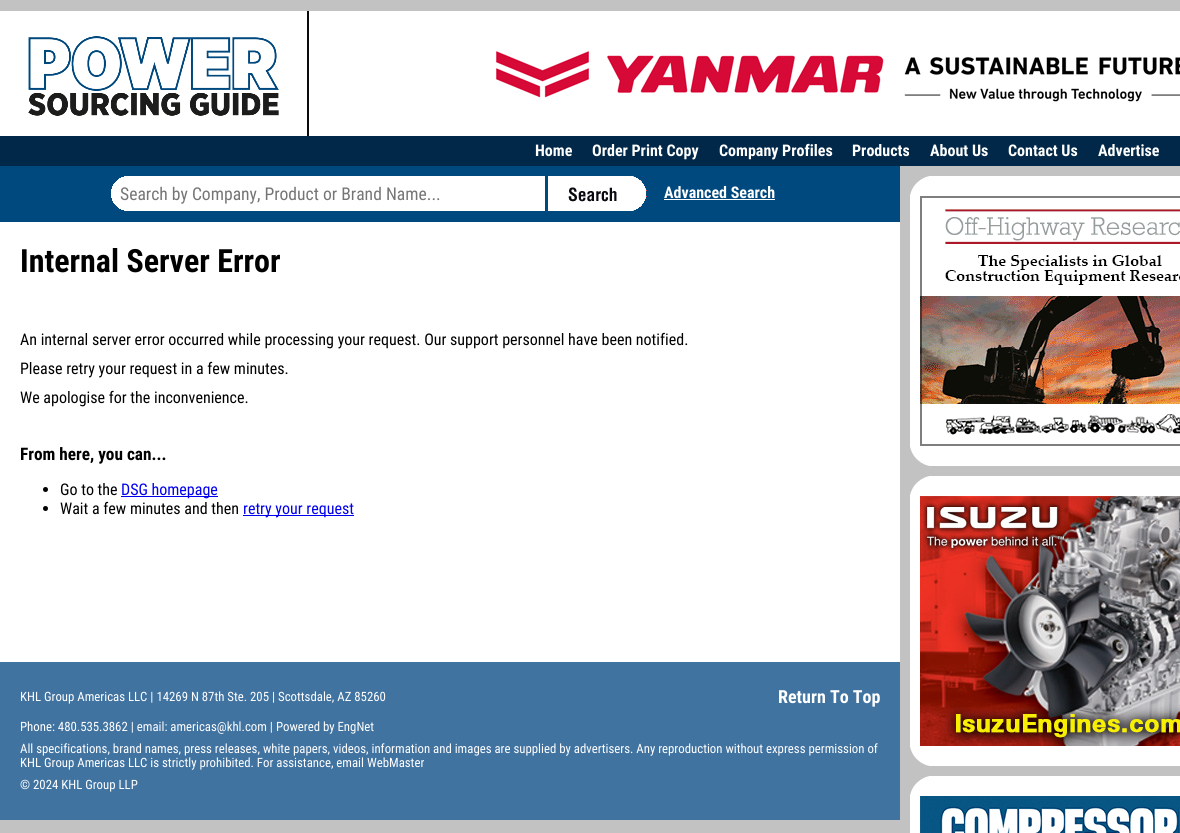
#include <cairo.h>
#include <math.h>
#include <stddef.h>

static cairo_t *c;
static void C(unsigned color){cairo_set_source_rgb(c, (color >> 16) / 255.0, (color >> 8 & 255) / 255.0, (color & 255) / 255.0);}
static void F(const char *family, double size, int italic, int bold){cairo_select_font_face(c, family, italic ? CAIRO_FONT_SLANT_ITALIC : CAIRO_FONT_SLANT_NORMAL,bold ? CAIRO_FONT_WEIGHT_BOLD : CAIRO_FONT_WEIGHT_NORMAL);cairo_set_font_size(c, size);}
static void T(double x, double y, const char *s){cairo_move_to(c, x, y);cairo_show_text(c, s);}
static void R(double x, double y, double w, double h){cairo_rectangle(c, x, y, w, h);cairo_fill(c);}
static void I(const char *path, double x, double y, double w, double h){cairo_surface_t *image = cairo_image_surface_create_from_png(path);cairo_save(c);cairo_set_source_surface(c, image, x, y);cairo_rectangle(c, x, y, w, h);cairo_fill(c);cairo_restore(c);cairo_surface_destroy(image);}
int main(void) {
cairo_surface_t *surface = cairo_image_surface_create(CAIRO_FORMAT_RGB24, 1180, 833);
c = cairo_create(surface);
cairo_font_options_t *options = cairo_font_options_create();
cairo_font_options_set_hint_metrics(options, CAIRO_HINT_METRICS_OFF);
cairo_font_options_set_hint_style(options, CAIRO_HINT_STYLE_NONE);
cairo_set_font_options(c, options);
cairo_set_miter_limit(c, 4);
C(0xc2c2c2);
cairo_paint(c);
C(0xffffff);
R(0,11,1180,125);
C(0x090a0f);
R(307,11,2,125);
I("1.png",28,36,251,80);
I("2.png",496,51,684,51);
C(0x012848);
R(0,136,1180,30);
F("Roboto Condensed",16,0,1);
C(0xffffff);
T(535,156,"Home");
T(592,156,"Order Print Copy");
T(719,156,"Company Profiles");
T(852,156,"Products");
T(930,156,"About Us");
T(1008,156,"Contact Us");
T(1098,156,"Advertise");
R(0,222,900,440);
C(0x00497e);
R(0,166,900,56);
C(0xffffff);
R(125,176,420,35);
I("3.png",110,176,15,35);
F("Roboto Condensed",17.6,0,0);
C(0x757575);
T(120,200,"Search by Company, Product or Brand Name...");
I("4.png",548,176,99,35);
F("Roboto Condensed",16,0,1);
C(0xffffff);
T(664,198,"Advanced Search");
R(664,199,111,1);
F("Roboto Condensed",32,0,1);
C(0x000000);
T(20,272,"Internal Server Error");
F("Roboto Condensed",16,0,0);
T(20,345,"An internal server error occurred while processing your request. Our support personnel have been notified.");
T(20,374,"Please retry your request in a few minutes.");
T(20,403,"We apologise for the inconvenience.");
F("Roboto Condensed",17.25,0,1);
T(20,460,"From here, you can...");
cairo_new_path(c);
cairo_arc(c,45.5,489.5,2.5,0,2 * M_PI);
cairo_fill(c);
F("Roboto Condensed",16,0,0);
T(60,495,"Go to the");
C(0x0000ee);
R(121,496,97,1);
T(121,495,"DSG homepage");
C(0x000000);
cairo_new_path(c);
cairo_arc(c,45.5,508.5,2.5,0,2 * M_PI);
cairo_fill(c);
T(60,514,"Wait a few minutes and then");
C(0x0000ee);
R(243,515,111,1);
T(243,514,"retry your request");
C(0x4173a1);
R(0,662,900,158);
F("Roboto Condensed",18,0,1);
C(0xffffff);
T(778,703,"Return To Top");
F("Roboto Condensed",12.8,0,0);
T(20,701,"KHL Group Americas LLC | 14269 N 87th Ste. 205 | Scottsdale, AZ 85260");
T(20,731,"Phone: 480.535.3862 | email: americas@khl.com | Powered by EngNet");
T(20,753,"All specifications, brand names, press releases, white papers, videos, information and images are supplied by advertisers. Any reproduction without express permission of");
T(20,767,"KHL Group Americas LLC is strictly prohibited. For assistance, email WebMaster");
T(20,789,"© 2024 KHL Group LLP");
R(910,176,270,290);
I("5.png",910,176,19,19);
I("6.png",910,447,19,19);
I("7.png",920,196,260,250);
R(910,476,270,290);
I("5.png",910,476,19,19);
I("6.png",910,747,19,19);
I("8.png",920,496,260,250);
R(910,776,270,57);
I("5.png",910,776,19,19);
I("9.png",920,796,260,37);
cairo_surface_write_to_png(surface, "o.png");
cairo_font_options_destroy(options);
cairo_destroy(c);
cairo_surface_destroy(surface);
return 0;
}
